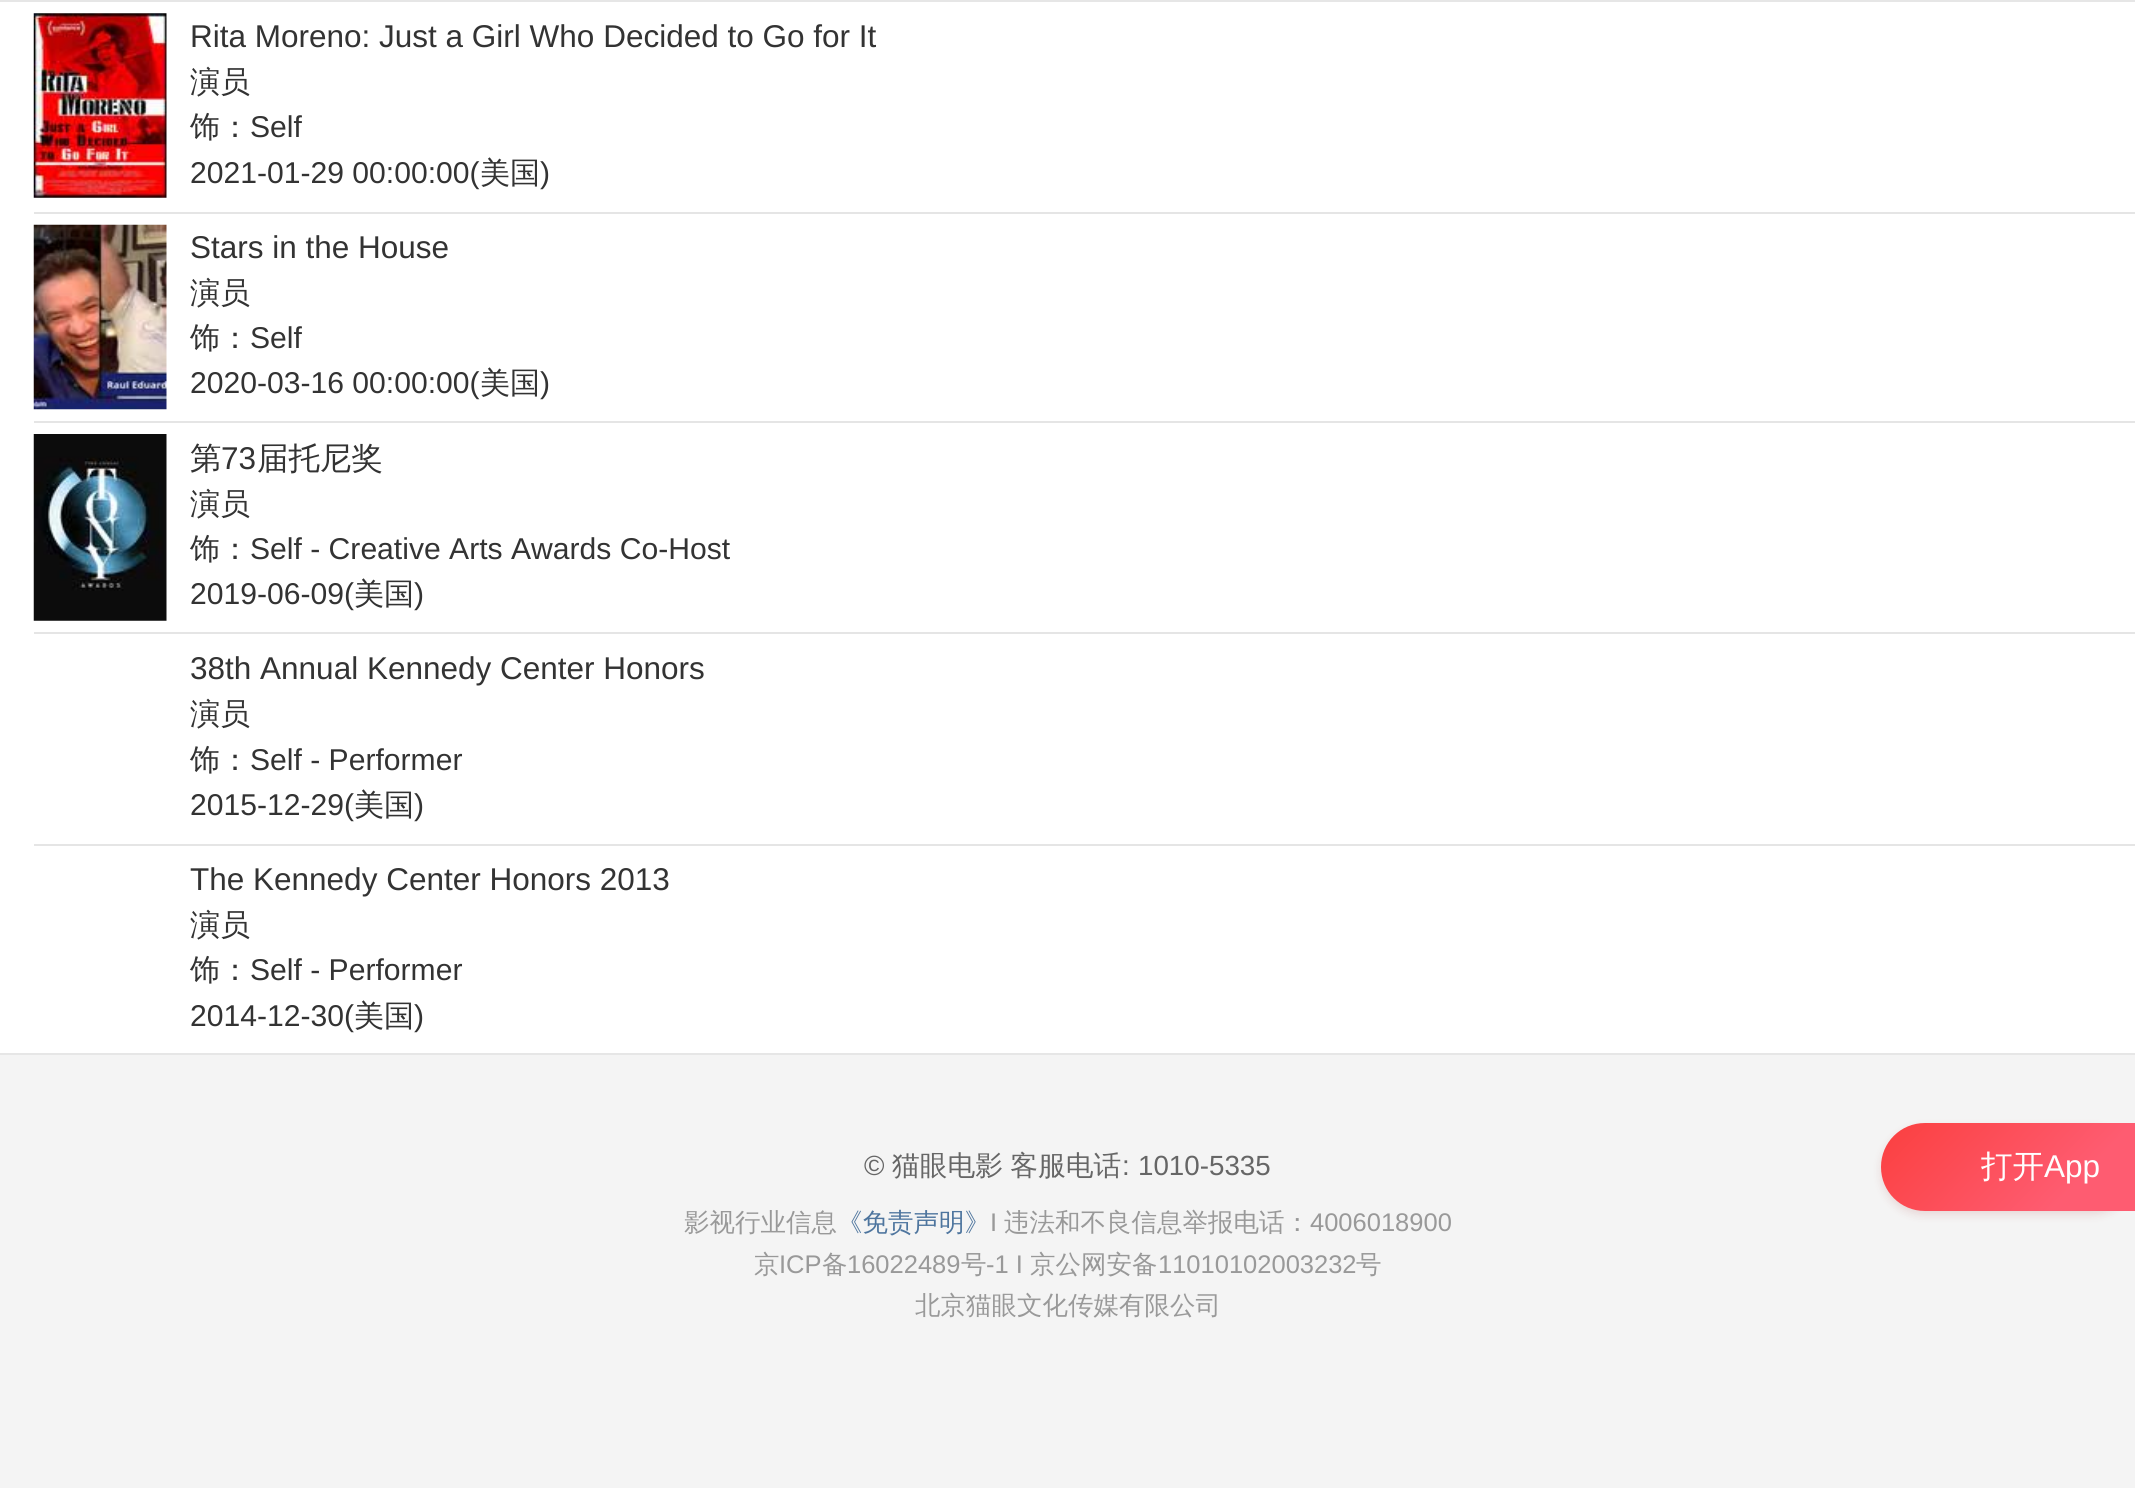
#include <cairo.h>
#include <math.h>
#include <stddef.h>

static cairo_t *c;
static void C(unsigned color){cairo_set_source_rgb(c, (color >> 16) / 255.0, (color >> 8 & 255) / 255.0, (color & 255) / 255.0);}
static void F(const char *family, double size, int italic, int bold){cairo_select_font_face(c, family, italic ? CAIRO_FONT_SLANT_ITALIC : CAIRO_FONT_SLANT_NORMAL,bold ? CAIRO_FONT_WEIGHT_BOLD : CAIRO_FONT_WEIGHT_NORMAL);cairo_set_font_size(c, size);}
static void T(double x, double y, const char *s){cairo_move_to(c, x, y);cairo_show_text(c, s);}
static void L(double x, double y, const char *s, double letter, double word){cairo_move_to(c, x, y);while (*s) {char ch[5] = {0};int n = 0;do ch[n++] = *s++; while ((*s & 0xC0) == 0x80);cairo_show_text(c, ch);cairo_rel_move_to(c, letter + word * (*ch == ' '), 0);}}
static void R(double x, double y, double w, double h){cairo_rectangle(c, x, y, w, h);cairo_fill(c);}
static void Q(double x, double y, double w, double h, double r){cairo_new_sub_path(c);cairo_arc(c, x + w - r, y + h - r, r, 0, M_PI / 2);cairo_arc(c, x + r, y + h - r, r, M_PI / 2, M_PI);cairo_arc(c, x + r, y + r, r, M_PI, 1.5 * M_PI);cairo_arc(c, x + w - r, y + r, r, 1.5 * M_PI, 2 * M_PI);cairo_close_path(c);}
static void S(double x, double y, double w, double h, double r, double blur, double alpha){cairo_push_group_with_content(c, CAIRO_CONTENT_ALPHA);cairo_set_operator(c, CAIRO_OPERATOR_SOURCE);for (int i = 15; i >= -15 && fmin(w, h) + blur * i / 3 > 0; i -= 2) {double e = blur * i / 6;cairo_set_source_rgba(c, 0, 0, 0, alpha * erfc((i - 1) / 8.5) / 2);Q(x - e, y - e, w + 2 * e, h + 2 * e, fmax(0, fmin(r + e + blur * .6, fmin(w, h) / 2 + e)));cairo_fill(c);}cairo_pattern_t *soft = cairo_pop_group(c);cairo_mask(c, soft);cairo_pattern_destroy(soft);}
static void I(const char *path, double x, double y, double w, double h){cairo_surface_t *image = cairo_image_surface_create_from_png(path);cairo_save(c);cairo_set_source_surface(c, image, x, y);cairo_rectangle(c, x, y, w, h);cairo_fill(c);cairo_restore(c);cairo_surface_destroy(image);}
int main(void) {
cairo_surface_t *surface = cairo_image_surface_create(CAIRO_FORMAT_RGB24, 2135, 1488);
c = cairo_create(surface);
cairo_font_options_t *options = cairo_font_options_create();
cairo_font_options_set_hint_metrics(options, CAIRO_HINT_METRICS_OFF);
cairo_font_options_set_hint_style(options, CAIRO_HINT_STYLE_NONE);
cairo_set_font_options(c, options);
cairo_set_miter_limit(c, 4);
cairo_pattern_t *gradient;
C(0xf4f4f4);
cairo_paint(c);
C(0xffffff);
R(0,2,2135,1051);
C(0xe6e6e6);
R(0,1053,2135,2);
R(0,0,2135,2);
C(0xe5e5e5);
R(34,212,2101,2);
I("1.png",33,13,134,185);
F("Liberation Sans",31.5,0,0);
C(0x333333);
T(190,47,"Rita Moreno: Just a Girl Who Decided to Go for It");
F("WenQuanYi Zen Hei Medium",30.1,0,0);
T(190,92,"演员");
T(190,137,"饰：");
F("Liberation Sans",30.1,0,0);
T(250,137,"Self");
T(190,183,"2021-01-29 00:00:00(");
F("WenQuanYi Zen Hei Medium",30.1,0,0);
T(480,183,"美国");
F("Liberation Sans",30.1,0,0);
T(540,183,")");
C(0xe5e5e5);
R(34,421,2101,2);
I("2.png",33,224,134,186);
F("Liberation Sans",31.5,0,0);
C(0x333333);
T(190,258,"Stars in the House");
F("WenQuanYi Zen Hei Medium",30.1,0,0);
T(190,303,"演员");
T(190,348,"饰：");
F("Liberation Sans",30.1,0,0);
T(250,348,"Self");
T(190,393,"2020-03-16 00:00:00(");
F("WenQuanYi Zen Hei Medium",30.1,0,0);
T(480,393,"美国");
F("Liberation Sans",30.1,0,0);
T(540,393,")");
C(0xe5e5e5);
R(34,632,2101,2);
I("3.png",33,434,134,187);
F("WenQuanYi Zen Hei Medium",31.5,0,0);
C(0x333333);
T(190,469,"第");
F("Liberation Sans",31.5,0,0);
T(221,469,"73");
F("WenQuanYi Zen Hei Medium",31.5,0,0);
T(257,469,"届托尼奖");
F("WenQuanYi Zen Hei Medium",30.1,0,0);
T(190,514,"演员");
T(190,559,"饰：");
F("Liberation Sans",30.1,0,0);
T(250,559,"Self - Creative Arts Awards Co-Host");
T(190,604,"2019-06-09(");
F("WenQuanYi Zen Hei Medium",30.1,0,0);
T(354,604,"美国");
F("Liberation Sans",30.1,0,0);
T(414,604,")");
C(0xe5e5e5);
R(34,844,2101,2);
F("Liberation Sans",31.5,0,0);
C(0x333333);
T(190,679,"38th Annual Kennedy Center Honors");
F("WenQuanYi Zen Hei Medium",30.1,0,0);
T(190,724,"演员");
T(190,770,"饰：");
F("Liberation Sans",30.1,0,0);
T(250,770,"Self - Performer");
T(190,815,"2015-12-29(");
F("WenQuanYi Zen Hei Medium",30.1,0,0);
T(354,815,"美国");
F("Liberation Sans",30.1,0,0);
T(414,815,")");
F("Liberation Sans",31.5,0,0);
T(190,890,"The Kennedy Center Honors 2013");
F("WenQuanYi Zen Hei Medium",30.1,0,0);
T(190,935,"演员");
T(190,980,"饰：");
F("Liberation Sans",30.1,0,0);
T(250,980,"Self - Performer");
T(190,1026,"2014-12-30(");
F("WenQuanYi Zen Hei Medium",30.1,0,0);
T(354,1026,"美国");
F("Liberation Sans",30.1,0,0);
T(414,1026,")");
F("Liberation Sans",27.75,0,0);
C(0x666666);
T(864,1175,"©");
F("WenQuanYi Zen Hei Medium",27.75,0,0);
L(892,1175,"猫眼电影 客服电话",0,-1);
F("Liberation Sans",27.75,0,0);
T(1122,1175,":");
T(1138,1175,"1010-5335");
F("WenQuanYi Zen Hei Medium",25.5,0,0);
C(0x999999);
T(684,1231,"影视行业信息");
C(0x4e759e);
T(837,1231,"《免责声明》");
F("Liberation Sans",25.5,0,0);
C(0x999999);
T(990,1231,"I");
F("WenQuanYi Zen Hei Medium",25.5,0,0);
T(1004,1231,"违法和不良信息举报电话：");
F("Liberation Sans",25.5,0,0);
T(1310,1231,"4006018900");
F("WenQuanYi Zen Hei Medium",25.5,0,0);
T(754,1273,"京");
F("Liberation Sans",25.5,0,0);
T(779,1273,"ICP");
F("WenQuanYi Zen Hei Medium",25.5,0,0);
T(822,1273,"备");
F("Liberation Sans",25.5,0,0);
T(847,1273,"16022489");
F("WenQuanYi Zen Hei Medium",25.5,0,0);
T(961,1273,"号");
F("Liberation Sans",25.5,0,0);
T(986,1273,"-1 I");
F("WenQuanYi Zen Hei Medium",25.5,0,0);
T(1030,1273,"京公网安备");
F("Liberation Sans",25.5,0,0);
T(1158,1273,"11010102003232");
F("WenQuanYi Zen Hei Medium",25.5,0,0);
T(1356,1273,"号");
T(915,1314,"北京猫眼文化传媒有限公司");
C(0xa53835);
S(1881,1127,254,88,44,4.5,.15);
gradient = cairo_pattern_create_linear(1920,1082,2096,1251);
cairo_pattern_add_color_stop_rgba(gradient,0,0.984,0.247,0.247,1);
cairo_pattern_add_color_stop_rgba(gradient,.75,0.996,0.361,0.443,1);
cairo_set_source(c,gradient);
cairo_pattern_destroy(gradient);
cairo_new_path(c);
cairo_move_to(c,1925,1123);
cairo_line_to(c,2135,1123);
cairo_line_to(c,2135,1211);
cairo_line_to(c,1925,1211);
cairo_curve_to(c,1900.5,1211,1881,1191.5,1881,1167);
cairo_curve_to(c,1881,1142.5,1900.5,1123,1925,1123);
cairo_close_path(c);
cairo_fill(c);
F("WenQuanYi Zen Hei Medium",31.5,0,0);
C(0xfefefe);
T(1981,1177,"打开");
F("Liberation Sans",31.5,0,0);
T(2044,1177,"App");
cairo_surface_write_to_png(surface, "o.png");
cairo_font_options_destroy(options);
cairo_destroy(c);
cairo_surface_destroy(surface);
return 0;
}
